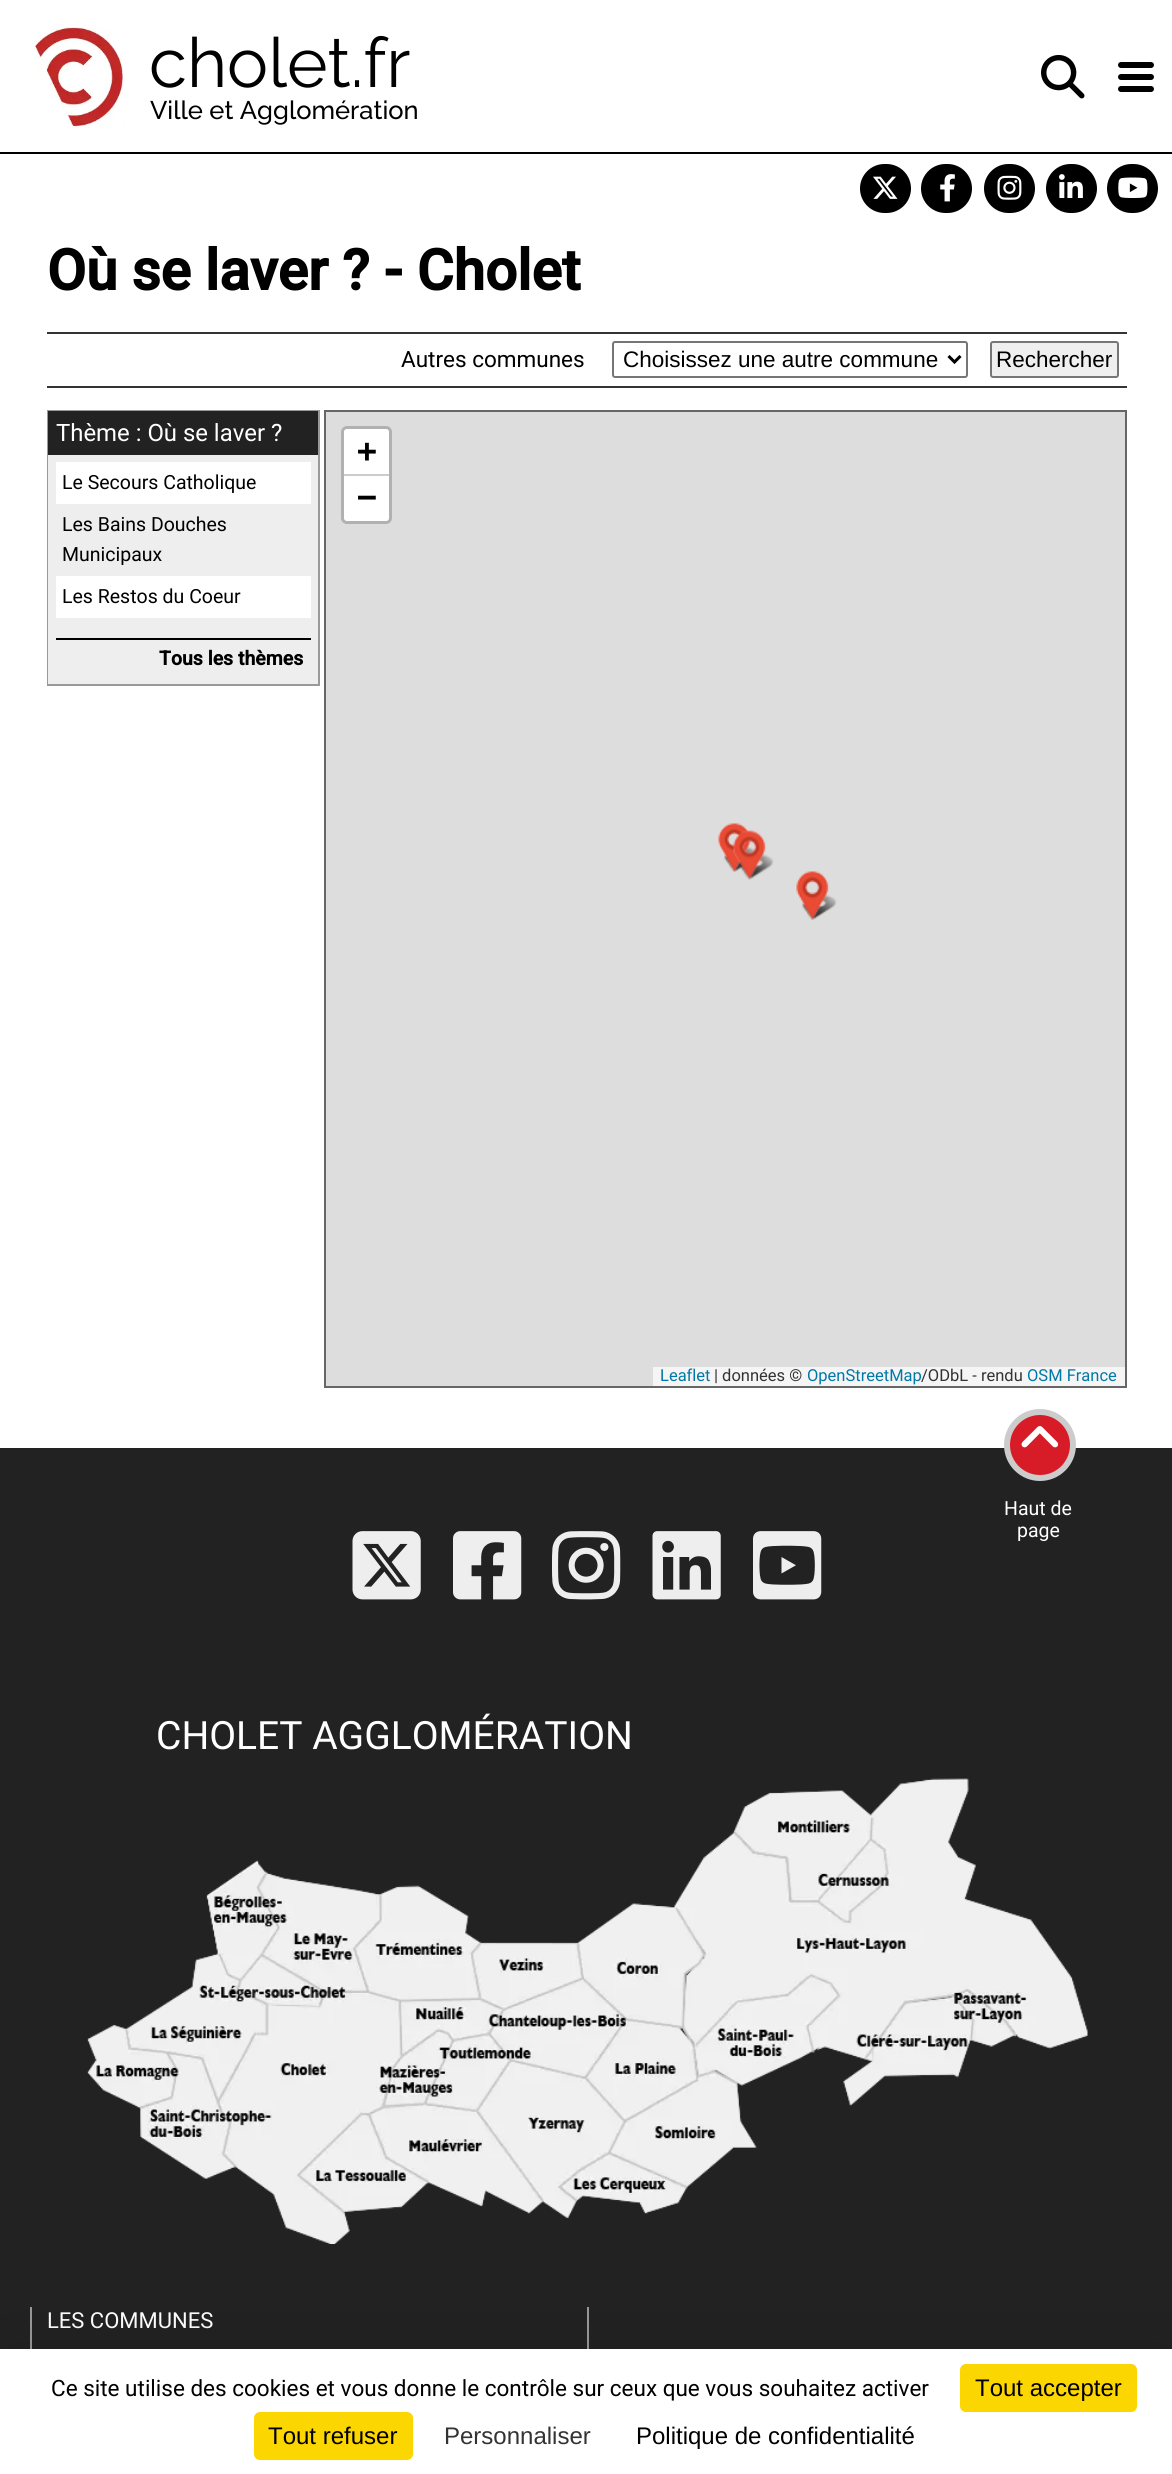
#include <cairo.h>
#include <math.h>
#include <stddef.h>

static cairo_t *c;
static void C(unsigned color){cairo_set_source_rgb(c, (color >> 16) / 255.0, (color >> 8 & 255) / 255.0, (color & 255) / 255.0);}
static void F(const char *family, double size, int italic, int bold){cairo_select_font_face(c, family, italic ? CAIRO_FONT_SLANT_ITALIC : CAIRO_FONT_SLANT_NORMAL,bold ? CAIRO_FONT_WEIGHT_BOLD : CAIRO_FONT_WEIGHT_NORMAL);cairo_set_font_size(c, size);}
static void T(double x, double y, const char *s){cairo_move_to(c, x, y);cairo_show_text(c, s);}
static void R(double x, double y, double w, double h){cairo_rectangle(c, x, y, w, h);cairo_fill(c);}
static void Q(double x, double y, double w, double h, double r){cairo_new_sub_path(c);cairo_arc(c, x + w - r, y + h - r, r, 0, M_PI / 2);cairo_arc(c, x + r, y + h - r, r, M_PI / 2, M_PI);cairo_arc(c, x + r, y + r, r, M_PI, 1.5 * M_PI);cairo_arc(c, x + w - r, y + r, r, 1.5 * M_PI, 2 * M_PI);cairo_close_path(c);}
static void S(double x, double y, double w, double h, double r, double blur, double alpha){cairo_push_group_with_content(c, CAIRO_CONTENT_ALPHA);cairo_set_operator(c, CAIRO_OPERATOR_SOURCE);for (int i = 15; i >= -15 && fmin(w, h) + blur * i / 3 > 0; i -= 2) {double e = blur * i / 6;cairo_set_source_rgba(c, 0, 0, 0, alpha * erfc((i - 1) / 8.5) / 2);Q(x - e, y - e, w + 2 * e, h + 2 * e, fmax(0, fmin(r + e + blur * .6, fmin(w, h) / 2 + e)));cairo_fill(c);}cairo_pattern_t *soft = cairo_pop_group(c);cairo_mask(c, soft);cairo_pattern_destroy(soft);}
static void I(const char *path, double x, double y, double w, double h){cairo_surface_t *image = cairo_image_surface_create_from_png(path);cairo_save(c);cairo_set_source_surface(c, image, x, y);cairo_rectangle(c, x, y, w, h);cairo_fill(c);cairo_restore(c);cairo_surface_destroy(image);}
int main(void) {
cairo_surface_t *surface = cairo_image_surface_create(CAIRO_FORMAT_RGB24, 1172, 2474);
c = cairo_create(surface);
cairo_font_options_t *options = cairo_font_options_create();
cairo_font_options_set_hint_metrics(options, CAIRO_HINT_METRICS_OFF);
cairo_font_options_set_hint_style(options, CAIRO_HINT_STYLE_NONE);
cairo_set_font_options(c, options);
cairo_set_miter_limit(c, 4);
C(0xffffff);
cairo_paint(c);
C(0x000000);
R(0,152,1172,2);
I("1.png",35,27,90,101);
F("Raleway",69,0,0);
T(149,87,"cholet.fr");
F("Raleway Medium",25.5,0,0);
T(150,119,"Ville et Agglomération");
I("2.png",1041,54,44,45);
Q(1118,62,36,6,3);
cairo_fill(c);
Q(1118,74,36,6,3);
cairo_fill(c);
Q(1118,86,36,6,3);
cairo_fill(c);
Q(860,164,51,49,24.5);
cairo_fill(c);
I("3.png",873,176,25,23);
Q(921,164,51,49,24.5);
cairo_fill(c);
I("4.png",940,174,15,28);
Q(984,164,51,49,24.5);
cairo_fill(c);
I("5.png",997,175,25,25);
Q(1046,164,51,49,24.5);
cairo_fill(c);
I("6.png",1059,174,24,24);
Q(1107,164,51,49,24.5);
cairo_fill(c);
I("7.png",1118,177,30,21);
F("Roboto",56.5,0,1);
T(47,290,"Où se laver ? - Cholet");
C(0x333333);
R(47,332,1080,2);
R(47,386,1080,2);
F("Roboto",22.5,0,0);
C(0x000000);
T(401,367,"Autres communes");
Q(613,342,354,35,2);
C(0x767676);
cairo_stroke(c);
cairo_new_path(c);
cairo_move_to(c,948.5,356);
cairo_line_to(c,954.5,362);
cairo_line_to(c,960.5,356);
C(0x000000);
cairo_set_line_width(c,3);
cairo_stroke(c);
F("Liberation Sans",22.5,0,0);
T(623,367,"Choisissez une autre commune");
C(0xefefef);
Q(991,342,127,35,2);
cairo_fill_preserve(c);
C(0x767676);
cairo_set_line_width(c,2);
cairo_stroke(c);
C(0x000000);
T(996,367,"Rechercher");
cairo_rectangle(c,48,411,271,274);
C(0x999999);
cairo_stroke(c);
C(0xeeeeee);
R(48,455,270,229);
C(0x222222);
R(48,411,270,44);
F("Roboto",23.9,0,0);
C(0xffffff);
T(56,441,"Thème : Où se laver ?");
R(56,462,255,42);
F("Roboto",19.5,0,0);
C(0x000000);
T(62,489,"Le Secours Catholique");
T(62,531,"Les Bains Douches");
T(62,561,"Municipaux");
C(0xffffff);
R(56,576,255,42);
C(0x000000);
T(62,603,"Les Restos du Coeur");
R(56,638,255,2);
F("Roboto",19.5,0,1);
T(159,665,"Tous les thèmes");
C(0xdddddd);
cairo_rectangle(c,325,411,801,976);
cairo_fill_preserve(c);
C(0x666666);
cairo_stroke(c);
Q(342.5,427.5,48,95,4.5);
C(0xb1b1b1);
cairo_set_line_width(c,3);
cairo_stroke(c);
C(0xffffff);
cairo_new_path(c);
cairo_move_to(c,347,429);
cairo_line_to(c,386,429);
cairo_curve_to(c,387.5,429,389,430.5,389,432);
cairo_line_to(c,389,476);
cairo_line_to(c,344,476);
cairo_line_to(c,344,432);
cairo_curve_to(c,344,430.5,345.5,429,347,429);
cairo_close_path(c);
cairo_fill(c);
C(0xcccccc);
R(344,474,45,2);
F("DejaVu Sans Mono",33,0,1);
C(0x000000);
T(357,462,"+");
C(0xffffff);
cairo_new_path(c);
cairo_move_to(c,344,476);
cairo_line_to(c,389,476);
cairo_line_to(c,389,518);
cairo_curve_to(c,389,519.5,387.5,521,386,521);
cairo_line_to(c,347,521);
cairo_curve_to(c,345.5,521,344,519.5,344,518);
cairo_close_path(c);
cairo_fill(c);
C(0x000000);
T(357,508,"−");
C(0xf5f5f5);
R(653,1367,472,19);
F("Roboto",16.5,0,0);
C(0x0078a8);
T(660,1381,"Leaflet");
C(0x333333);
T(714,1381,"| données ©");
C(0x0078a8);
T(807,1381,"OpenStreetMap");
C(0x333333);
T(921,1381,"/ODbL - rendu");
C(0x0078a8);
T(1027,1381,"OSM France");
I("8.png",718,823,39,49);
I("9.png",733,830,41,50);
I("10.png",796,871,41,49);
C(0x222222);
R(0,1448,1172,901);
C(0xd71c27);
cairo_arc(c,1040,1445,33,0,2 * M_PI);
cairo_fill_preserve(c);
C(0xcccccc);
cairo_set_line_width(c,6);
cairo_stroke(c);
I("11.png",1021,1426,38,22);
F("Roboto",19.5,0,0);
C(0xffffff);
T(1004,1515,"Haut de");
T(1017,1537,"page");
I("12.png",352,1531,69,69);
I("13.png",453,1531,69,69);
I("14.png",552,1531,69,69);
I("15.png",652,1531,69,69);
I("16.png",753,1531,69,69);
F("Roboto",39,0,0);
T(156,1749,"CHOLET AGGLOMÉRATION");
I("17.png",87,1778,1001,466);
C(0x999999);
R(30,2307,2,42);
F("Roboto",22,0,0);
C(0xffffff);
T(47,2328,"LES COMMUNES");
C(0x999999);
R(587,2307,2,42);
C(0x000000);
S(0,2379,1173,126,0,45,.25);
C(0xffffff);
R(0,2349,1172,125);
F("Roboto",22.5,0,0);
C(0x000000);
T(51,2396,"Ce site utilise des cookies et vous donne le contrôle sur ceux que vous souhaitez activer");
C(0xfbd600);
Q(960,2364,177,48,6);
cairo_fill(c);
F("Liberation Sans",24,0,0);
C(0x000000);
T(975,2396,"Tout accepter");
C(0xfbd600);
Q(254,2412,159,48,6);
cairo_fill(c);
C(0x000000);
T(268,2444,"Tout refuser");
C(0x333333);
T(444,2444,"Personnaliser");
C(0x000000);
T(636,2444,"Politique de confidentialité");
cairo_surface_write_to_png(surface, "o.png");
cairo_font_options_destroy(options);
cairo_destroy(c);
cairo_surface_destroy(surface);
return 0;
}
